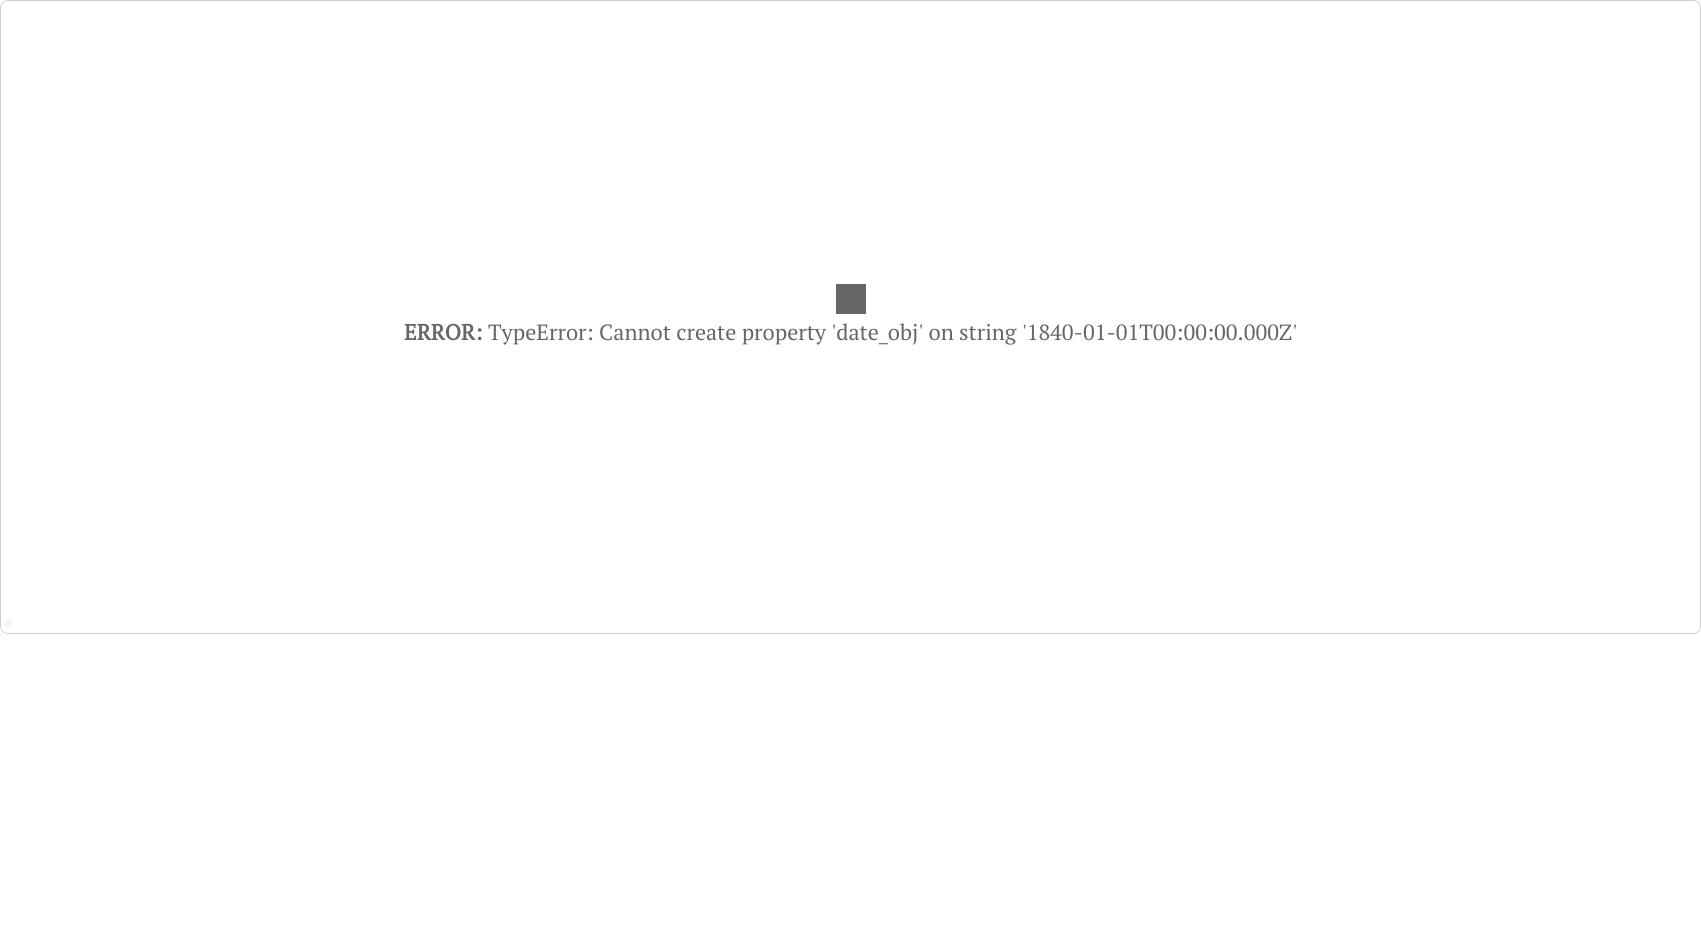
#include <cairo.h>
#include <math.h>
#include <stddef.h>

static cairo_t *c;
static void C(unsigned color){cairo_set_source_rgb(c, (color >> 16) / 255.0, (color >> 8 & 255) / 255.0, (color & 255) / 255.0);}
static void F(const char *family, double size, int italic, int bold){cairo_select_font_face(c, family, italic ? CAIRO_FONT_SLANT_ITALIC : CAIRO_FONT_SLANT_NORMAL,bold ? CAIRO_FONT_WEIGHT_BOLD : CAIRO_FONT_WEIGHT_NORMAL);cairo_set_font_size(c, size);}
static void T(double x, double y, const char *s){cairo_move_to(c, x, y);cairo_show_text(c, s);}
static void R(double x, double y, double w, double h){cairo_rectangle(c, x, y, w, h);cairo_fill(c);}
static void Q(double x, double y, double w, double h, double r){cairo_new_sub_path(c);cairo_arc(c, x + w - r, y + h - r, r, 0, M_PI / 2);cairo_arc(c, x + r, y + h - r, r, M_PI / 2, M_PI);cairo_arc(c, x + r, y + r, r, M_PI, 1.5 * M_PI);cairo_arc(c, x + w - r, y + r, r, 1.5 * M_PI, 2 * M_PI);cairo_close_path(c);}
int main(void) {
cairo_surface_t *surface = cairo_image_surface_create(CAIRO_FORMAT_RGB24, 1701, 952);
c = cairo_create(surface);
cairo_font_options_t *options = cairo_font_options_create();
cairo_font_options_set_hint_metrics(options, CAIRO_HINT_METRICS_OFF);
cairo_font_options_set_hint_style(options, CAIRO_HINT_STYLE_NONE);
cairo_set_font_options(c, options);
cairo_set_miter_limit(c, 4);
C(0xffffff);
cairo_paint(c);
Q(.5,.5,1700,633,7.5);
C(0xcccccc);
cairo_set_line_width(c,1);
cairo_stroke(c);
cairo_save(c);
Q(1,1,1699,632,7);
cairo_clip(c);
cairo_set_source_rgba(c,1,1,1,0.85);
R(1,615,66,16);
cairo_restore(c);
cairo_new_path(c);
cairo_move_to(c,8,617.5);
cairo_line_to(c,13.5,623.5);
cairo_line_to(c,8,629);
cairo_line_to(c,2.5,623.5);
cairo_close_path(c);
cairo_fill(c);
cairo_set_source_rgba(c,1,1,1,0.8);
Q(1,1,1699,632,7);
cairo_fill(c);
C(0x666666);
R(836,284,30,30);
F("PT Serif",22,0,1);
T(404,340,"ERROR:");
F("PT Serif",22,0,0);
T(488,340,"TypeError: Cannot create property 'date_obj' on string '1840-01-01T00:00:00.000Z'");
cairo_surface_write_to_png(surface, "o.png");
cairo_font_options_destroy(options);
cairo_destroy(c);
cairo_surface_destroy(surface);
return 0;
}
